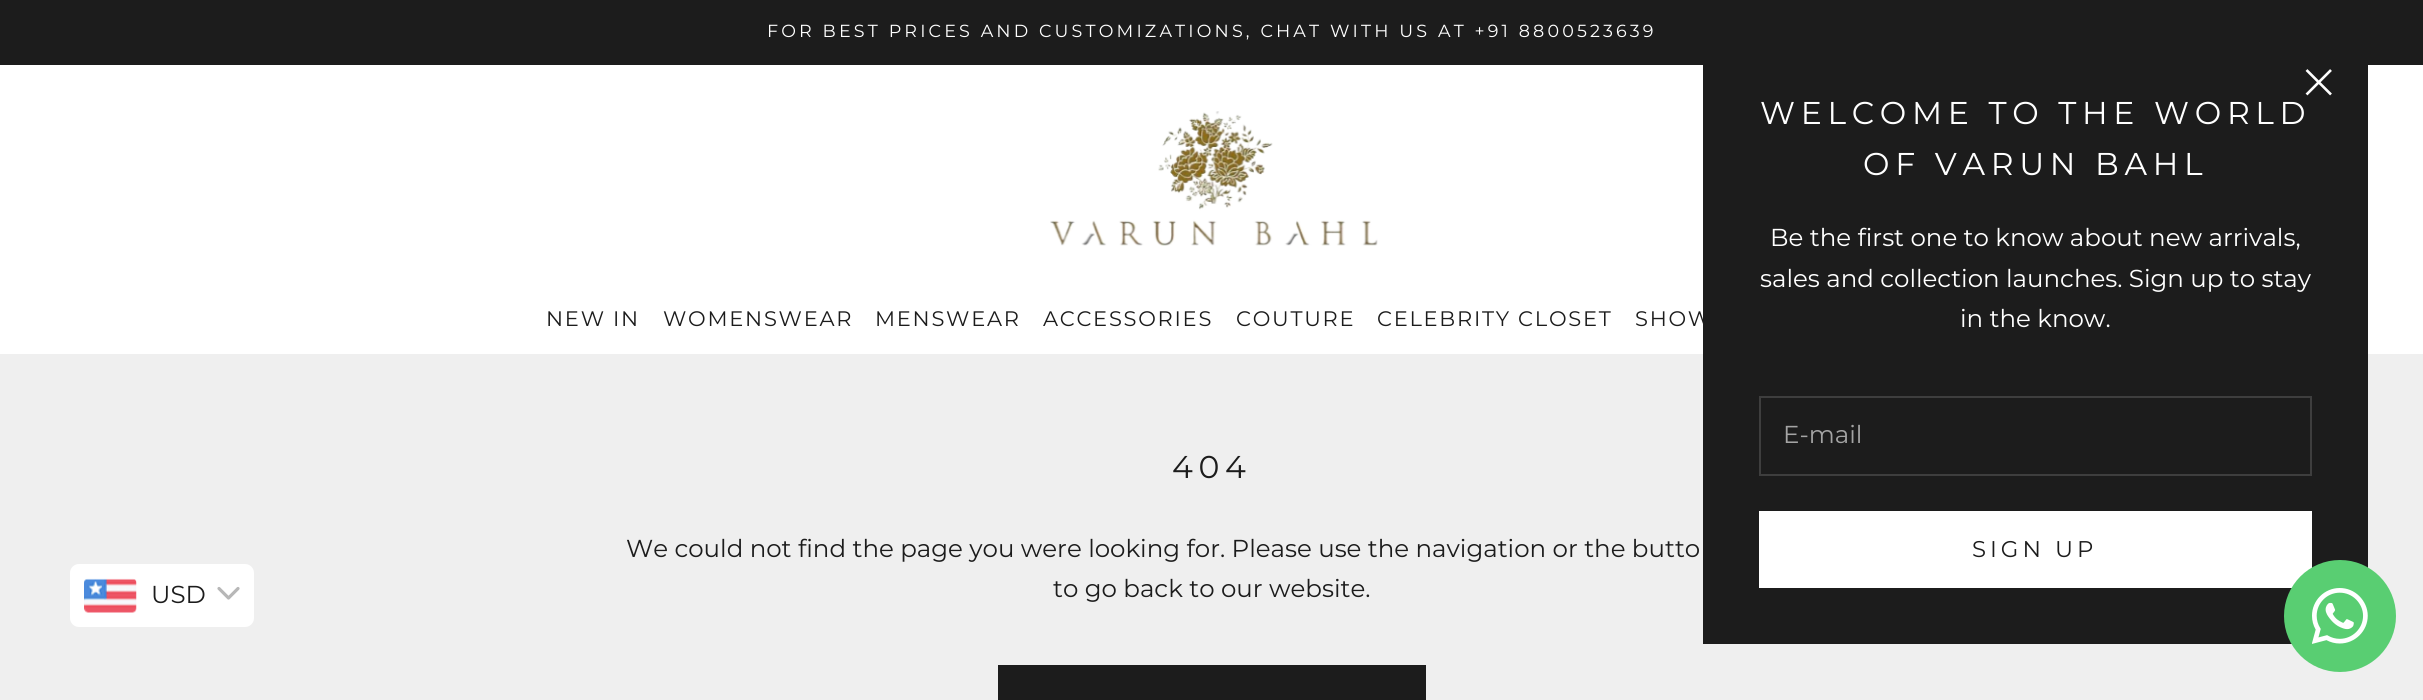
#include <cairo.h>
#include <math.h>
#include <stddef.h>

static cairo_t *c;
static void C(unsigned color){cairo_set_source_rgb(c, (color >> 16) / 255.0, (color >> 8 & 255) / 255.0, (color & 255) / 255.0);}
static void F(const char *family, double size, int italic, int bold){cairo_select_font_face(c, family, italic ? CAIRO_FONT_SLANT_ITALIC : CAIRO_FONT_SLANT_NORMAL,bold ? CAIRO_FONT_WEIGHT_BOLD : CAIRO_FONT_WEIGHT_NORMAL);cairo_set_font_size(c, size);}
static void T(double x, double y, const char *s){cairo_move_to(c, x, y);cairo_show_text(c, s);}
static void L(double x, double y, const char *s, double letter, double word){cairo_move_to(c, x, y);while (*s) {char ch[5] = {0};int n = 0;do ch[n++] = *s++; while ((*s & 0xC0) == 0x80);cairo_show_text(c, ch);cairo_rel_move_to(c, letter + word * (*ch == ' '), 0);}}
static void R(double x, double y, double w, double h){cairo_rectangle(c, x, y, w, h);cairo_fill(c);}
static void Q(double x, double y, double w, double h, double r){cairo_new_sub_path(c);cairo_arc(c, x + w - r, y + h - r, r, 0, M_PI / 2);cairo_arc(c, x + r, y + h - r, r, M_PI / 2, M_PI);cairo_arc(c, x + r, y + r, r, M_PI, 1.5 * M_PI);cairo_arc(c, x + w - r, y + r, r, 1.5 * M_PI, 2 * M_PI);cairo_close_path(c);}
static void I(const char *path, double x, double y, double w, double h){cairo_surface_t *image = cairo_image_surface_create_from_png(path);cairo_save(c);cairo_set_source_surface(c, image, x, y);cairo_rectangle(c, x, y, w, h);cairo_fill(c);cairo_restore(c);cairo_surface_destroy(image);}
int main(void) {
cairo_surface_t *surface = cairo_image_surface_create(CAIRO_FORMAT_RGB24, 2423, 700);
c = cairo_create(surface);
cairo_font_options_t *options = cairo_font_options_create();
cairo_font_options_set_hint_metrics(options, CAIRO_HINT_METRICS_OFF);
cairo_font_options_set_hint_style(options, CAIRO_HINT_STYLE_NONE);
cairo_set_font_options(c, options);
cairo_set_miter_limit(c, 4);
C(0xefefef);
cairo_paint(c);
C(0x1c1c1c);
R(0,0,2423,65);
F("Montserrat",17.5,0,0);
C(0xffffff);
L(767,37,"FOR BEST PRICES AND CUSTOMIZATIONS, CHAT WITH US AT +91 8800523639",3.15,0);
R(0,65,2423,289);
I("1.png",1050,111,328,135);
F("Montserrat",21,0,0);
C(0x1c1c1c);
L(546,326,"NEW IN",1.75,0);
L(663,326,"WOMENSWEAR",1.75,0);
L(875,326,"MENSWEAR",1.75,0);
L(1043,326,"ACCESSORIES",1.75,0);
L(1236,326,"COUTURE",1.75,0);
L(1377,326,"CELEBRITY CLOSET",1.75,0);
L(1635,326,"SHOW",1.75,0);
R(1703,65,665,579);
cairo_new_path(c);
cairo_move_to(c,2306.5,70);
cairo_line_to(c,2331,94.5);
cairo_move_to(c,2306.5,94.5);
cairo_line_to(c,2331,70);
C(0xffffff);
cairo_set_line_width(c,2.6);
cairo_stroke(c);
F("Montserrat",31.5,0,0);
L(1760,124,"WELCOME TO THE WORLD",5.7,0);
L(1863,175,"OF VARUN BAHL",5.7,0);
F("Montserrat",24.5,0,0);
T(1770,246,"Be the first one to know about new arrivals,");
T(1760,287,"sales and collection launches. Sign up to stay");
T(1960,327,"in the know.");
cairo_rectangle(c,1760,397,551,78);
C(0x3e3e3e);
cairo_set_line_width(c,2);
cairo_stroke(c);
C(0xa4a4a4);
T(1783,443,"E-mail");
C(0xffffff);
cairo_rectangle(c,1760,512,551,75);
cairo_fill_preserve(c);
cairo_stroke(c);
F("Montserrat",22.75,0,0);
C(0x1c1c1c);
L(1972,557,"SIGN UP",4,0);
F("Montserrat",31.5,0,0);
L(1172,478,"404",5.7,0);
F("Montserrat",24.5,0,0);
T(626,557,"We could not find the page you were looking for. Please use the navigation or the butto");
T(1053,597,"to go back to our website.");
cairo_rectangle(c,999,666,426,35);
cairo_fill_preserve(c);
cairo_stroke(c);
C(0xffffff);
Q(70,564,184,63,9);
cairo_fill(c);
I("2.png",84,578,53,35);
C(0x1c1c1c);
T(151,603,"USD");
cairo_new_path(c);
cairo_move_to(c,219,588.5);
cairo_line_to(c,228.5,598);
cairo_line_to(c,238,588.5);
C(0xb7b7b7);
cairo_set_line_width(c,3.2);
cairo_set_line_cap(c,CAIRO_LINE_CAP_ROUND);
cairo_set_line_join(c,CAIRO_LINE_JOIN_ROUND);
cairo_stroke(c);
C(0x59ce72);
cairo_arc(c,2340,616,56,0,2 * M_PI);
cairo_fill(c);
I("3.png",2312,588,56,56);
cairo_surface_write_to_png(surface, "o.png");
cairo_font_options_destroy(options);
cairo_destroy(c);
cairo_surface_destroy(surface);
return 0;
}
